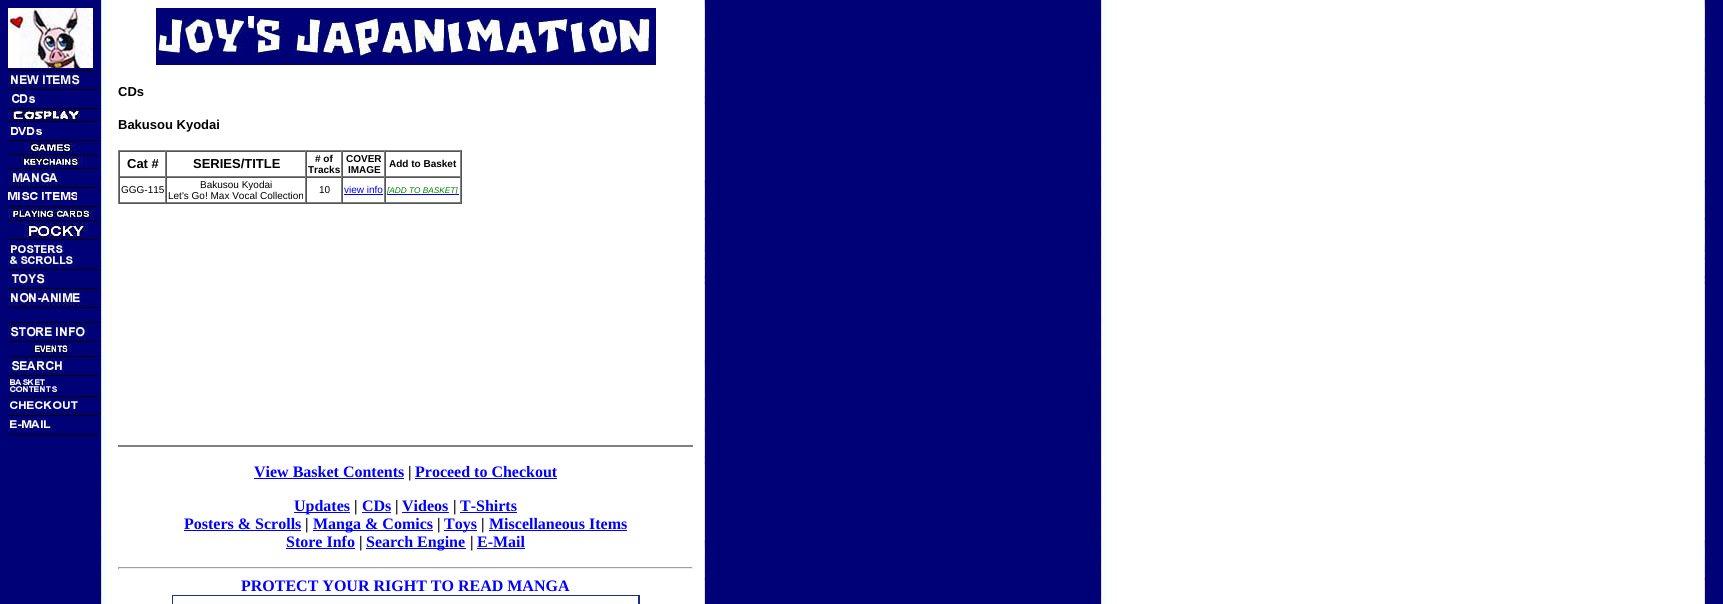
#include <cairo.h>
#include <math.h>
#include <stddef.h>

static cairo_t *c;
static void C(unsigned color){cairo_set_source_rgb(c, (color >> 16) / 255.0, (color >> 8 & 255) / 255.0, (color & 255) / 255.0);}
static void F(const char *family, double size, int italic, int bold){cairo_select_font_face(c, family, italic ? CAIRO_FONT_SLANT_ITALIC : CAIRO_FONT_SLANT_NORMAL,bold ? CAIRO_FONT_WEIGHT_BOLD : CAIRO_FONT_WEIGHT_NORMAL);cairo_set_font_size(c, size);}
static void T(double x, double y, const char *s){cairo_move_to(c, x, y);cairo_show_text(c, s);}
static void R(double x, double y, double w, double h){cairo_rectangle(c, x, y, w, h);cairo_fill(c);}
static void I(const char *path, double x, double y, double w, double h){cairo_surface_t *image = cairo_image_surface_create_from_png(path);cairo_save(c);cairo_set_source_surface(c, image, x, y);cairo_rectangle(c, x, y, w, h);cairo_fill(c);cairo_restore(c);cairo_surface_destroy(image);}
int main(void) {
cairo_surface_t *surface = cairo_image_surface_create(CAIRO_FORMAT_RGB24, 1723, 604);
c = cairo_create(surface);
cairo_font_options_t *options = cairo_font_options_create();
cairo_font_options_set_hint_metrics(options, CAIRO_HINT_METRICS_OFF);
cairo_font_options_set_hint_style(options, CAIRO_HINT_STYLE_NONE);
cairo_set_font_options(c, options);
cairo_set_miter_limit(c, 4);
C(0xffffff);
cairo_paint(c);
I("1.png",0,0,1723,604);
I("2.png",8,8,85,60);
C(0x000000);
R(8,70,90,1);
I("3.png",8,73,72,14);
R(8,89,90,1);
I("4.png",8,92,29,14);
R(8,108,90,1);
I("5.png",8,111,75,8);
R(8,121,90,1);
I("6.png",8,124,36,14);
R(8,140,90,1);
I("7.png",24,143,56,9);
R(8,154,90,1);
I("8.png",8,157,81,9);
R(8,168,90,1);
I("9.png",8,171,53,14);
R(8,187,90,1);
I("10.png",8,190,69,14);
R(8,206,90,1);
I("11.png",8,209,85,9);
R(8,220,90,1);
I("12.png",23,223,75,14);
R(8,239,90,1);
I("13.png",8,242,67,25);
R(8,269,90,1);
I("14.png",8,272,41,14);
R(8,288,90,1);
I("15.png",8,291,74,14);
R(8,307,90,1);
R(8,322,90,1);
I("16.png",8,325,80,14);
R(8,341,90,1);
I("17.png",24,344,48,10);
R(8,356,90,1);
I("18.png",8,359,57,14);
R(8,375,90,1);
I("19.png",8,378,50,16);
R(8,396,90,1);
I("20.png",8,399,72,14);
R(8,415,90,1);
I("21.png",8,418,44,14);
R(8,434,90,1);
I("22.png",156,8,500,57);
F("Liberation Sans",13,0,1);
T(118,96,"CDs");
T(118,129,"Bakusou Kyodai");
C(0x808080);
R(118,150,344,1);
C(0x555555);
R(461,150,1,54);
R(118,203,344,1);
C(0x808080);
R(118,150,1,54);
C(0x555555);
R(119,151,342,1);
C(0x808080);
R(165,151,1,26);
R(119,176,47,1);
C(0x555555);
R(119,151,1,26);
C(0x000000);
T(127,168,"Cat #");
C(0x808080);
R(305,151,1,26);
R(166,176,140,1);
C(0x555555);
R(166,151,1,26);
C(0x000000);
T(193,168,"SERIES/TITLE");
C(0x808080);
R(341,151,1,26);
R(306,176,36,1);
C(0x555555);
R(306,151,1,26);
F("Liberation Sans",10,0,1);
C(0x000000);
T(315,162,"# of");
T(308,173,"Tracks");
C(0x808080);
R(384,151,1,26);
R(342,176,43,1);
C(0x555555);
R(342,151,1,26);
C(0x000000);
T(346,162,"COVER");
T(348,173,"IMAGE");
C(0x808080);
R(460,151,1,26);
R(385,176,76,1);
C(0x555555);
R(385,151,1,26);
C(0x000000);
T(389,167,"Add to Basket");
C(0x555555);
R(119,177,342,1);
C(0x808080);
R(165,177,1,26);
R(119,202,47,1);
C(0x555555);
R(119,177,1,26);
F("Liberation Sans",10,0,0);
C(0x000000);
T(121,193,"GGG-115");
C(0x808080);
R(305,177,1,26);
R(166,202,140,1);
C(0x555555);
R(166,177,1,26);
C(0x000000);
T(200,188,"Bakusou Kyodai");
T(168,199,"Let's Go! Max Vocal Collection");
C(0x808080);
R(341,177,1,26);
R(306,202,36,1);
C(0x555555);
R(306,177,1,26);
C(0x000000);
T(319,193,"10");
C(0x808080);
R(384,177,1,26);
R(342,202,43,1);
C(0x555555);
R(342,177,1,26);
C(0x0000ff);
T(344,193,"view info");
R(344,194,39,1);
C(0x808080);
R(460,177,1,26);
R(385,202,76,1);
C(0x555555);
R(385,177,1,26);
C(0x0000ff);
R(387,194,72,1);
F("Liberation Sans",8.25,1,0);
C(0x008000);
T(387,193,"[ADD TO BASKET]");
C(0x808080);
R(118,445,575,2);
F("Liberation Serif",16,0,1);
C(0x0000ff);
T(254,477,"View Basket Contents");
R(254,478,150,1);
C(0x000000);
T(408,477,"|");
C(0x0000ff);
T(415,477,"Proceed to Checkout");
R(415,478,142,1);
R(294,512,56,1);
T(294,511,"Updates");
C(0x000000);
T(354,511,"|");
C(0x0000ff);
T(362,511,"CDs");
R(362,512,29,1);
C(0x000000);
T(395,511,"|");
C(0x0000ff);
T(402,511,"Videos");
R(402,512,47,1);
C(0x000000);
T(453,511,"|");
C(0x0000ff);
T(460,511,"T-Shirts");
R(460,512,57,1);
T(184,529,"Posters & Scrolls");
R(184,530,117,1);
C(0x000000);
T(305,529,"|");
C(0x0000ff);
R(313,530,120,1);
T(313,529,"Manga & Comics");
C(0x000000);
T(437,529,"|");
C(0x0000ff);
R(444,530,33,1);
T(444,529,"Toys");
C(0x000000);
T(481,529,"|");
C(0x0000ff);
T(489,529,"Miscellaneous Items");
R(489,530,138,1);
T(286,547,"Store Info");
R(286,548,69,1);
C(0x000000);
T(359,547,"|");
C(0x0000ff);
R(366,548,100,1);
T(366,547,"Search Engine");
C(0x000000);
T(470,547,"|");
C(0x0000ff);
T(477,547,"E-Mail");
R(477,548,48,1);
C(0x9f9f9f);
R(118,567,575,1);
C(0xeeeeee);
R(692,567,1,2);
R(118,568,575,1);
C(0x9f9f9f);
R(118,567,1,2);
C(0x0000ff);
T(241,591,"PROTECT YOUR RIGHT TO READ MANGA");
I("23.png",172,595,468,9);
cairo_surface_write_to_png(surface, "o.png");
cairo_font_options_destroy(options);
cairo_destroy(c);
cairo_surface_destroy(surface);
return 0;
}
